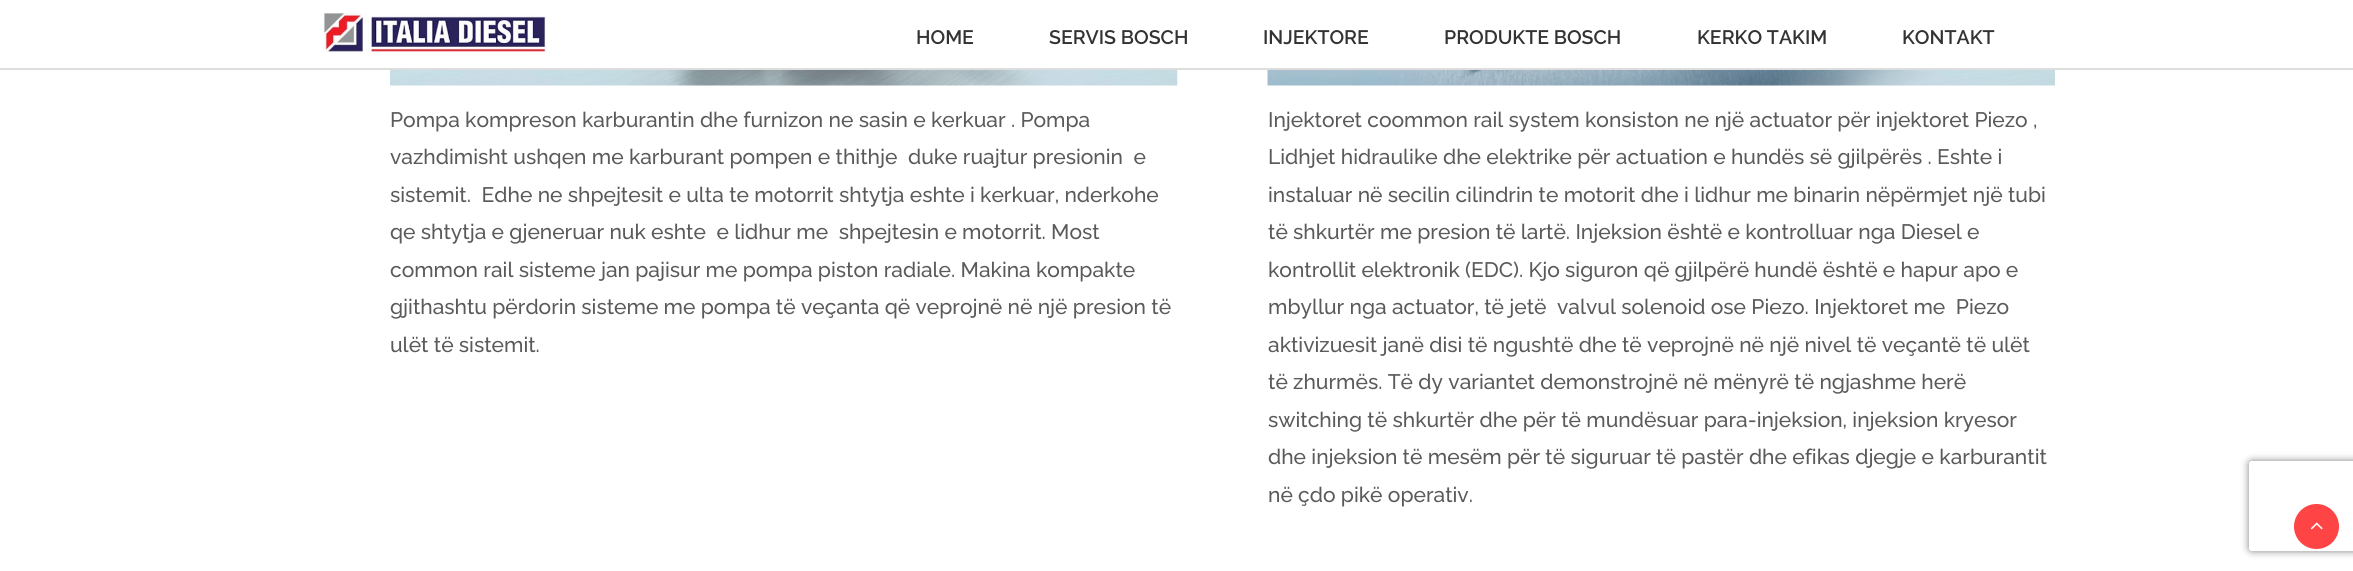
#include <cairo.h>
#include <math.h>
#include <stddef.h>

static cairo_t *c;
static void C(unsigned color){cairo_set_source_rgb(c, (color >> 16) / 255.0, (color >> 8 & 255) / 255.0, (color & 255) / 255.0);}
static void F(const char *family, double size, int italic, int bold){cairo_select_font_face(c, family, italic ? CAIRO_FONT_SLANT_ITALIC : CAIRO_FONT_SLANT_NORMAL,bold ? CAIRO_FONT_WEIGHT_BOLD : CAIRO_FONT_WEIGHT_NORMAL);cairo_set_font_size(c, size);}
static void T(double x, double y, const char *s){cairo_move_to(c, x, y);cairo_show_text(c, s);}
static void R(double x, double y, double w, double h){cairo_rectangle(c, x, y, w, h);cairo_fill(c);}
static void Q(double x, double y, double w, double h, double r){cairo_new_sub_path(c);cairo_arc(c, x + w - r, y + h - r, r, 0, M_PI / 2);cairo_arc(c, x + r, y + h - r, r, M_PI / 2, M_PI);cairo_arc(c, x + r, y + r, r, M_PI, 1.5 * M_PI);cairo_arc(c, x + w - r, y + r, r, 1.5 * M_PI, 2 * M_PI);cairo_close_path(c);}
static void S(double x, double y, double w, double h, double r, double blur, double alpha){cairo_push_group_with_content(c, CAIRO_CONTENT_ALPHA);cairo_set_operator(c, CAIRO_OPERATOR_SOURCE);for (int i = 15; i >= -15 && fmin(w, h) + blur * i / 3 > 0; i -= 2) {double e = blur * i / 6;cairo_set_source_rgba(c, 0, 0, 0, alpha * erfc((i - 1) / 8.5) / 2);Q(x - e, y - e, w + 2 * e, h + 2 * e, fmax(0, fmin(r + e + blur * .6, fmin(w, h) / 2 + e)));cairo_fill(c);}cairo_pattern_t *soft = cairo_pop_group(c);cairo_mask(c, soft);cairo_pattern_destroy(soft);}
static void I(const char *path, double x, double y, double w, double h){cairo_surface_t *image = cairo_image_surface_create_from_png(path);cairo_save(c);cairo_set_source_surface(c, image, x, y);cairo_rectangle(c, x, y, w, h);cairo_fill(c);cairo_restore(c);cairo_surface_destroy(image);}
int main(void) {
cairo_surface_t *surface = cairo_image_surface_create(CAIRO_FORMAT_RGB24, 2353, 571);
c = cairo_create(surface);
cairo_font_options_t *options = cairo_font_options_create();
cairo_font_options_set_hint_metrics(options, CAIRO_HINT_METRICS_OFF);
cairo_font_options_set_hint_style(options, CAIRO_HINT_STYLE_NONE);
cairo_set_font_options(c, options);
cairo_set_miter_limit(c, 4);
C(0xffffff);
cairo_paint(c);
C(0xdddddd);
R(0,68,2353,2);
I("1.png",323,12,225,41);
F("Raleway SemiBold",19.5,0,0);
C(0x333333);
T(916,44,"HOME");
T(1049,44,"SERVIS BOSCH");
T(1263,44,"INJEKTORE");
T(1444,44,"PRODUKTE BOSCH");
T(1697,44,"KERKO TAKIM");
T(1902,44,"KONTAKT");
I("2.png",390,70,788,16);
F("Raleway Medium",21,0,0);
C(0x5a5a5a);
T(390,127,"Pompa kompreson karburantin dhe furnizon ne sasin e kerkuar . Pompa");
T(390,164,"vazhdimisht ushqen me karburant pompen e thithje  duke ruajtur presionin  e");
T(390,202,"sistemit.  Edhe ne shpejtesit e ulta te motorrit shtytja eshte i kerkuar, nderkohe");
T(390,239,"qe shtytja e gjeneruar nuk eshte  e lidhur me  shpejtesin e motorrit. Most");
T(390,277,"common rail sisteme jan pajisur me pompa piston radiale. Makina kompakte");
T(390,314,"gjithashtu përdorin sisteme me pompa të veçanta që veprojnë në një presion të");
T(390,352,"ulët të sistemit.");
I("3.png",1267,70,788,16);
T(1268,127,"Injektoret coommon rail system konsiston ne një actuator për injektoret Piezo ,");
T(1268,164,"Lidhjet hidraulike dhe elektrike për actuation e hundës së gjilpërës . Eshte i");
T(1268,202,"instaluar në secilin cilindrin te motorit dhe i lidhur me binarin nëpërmjet një tubi");
T(1268,239,"të shkurtër me presion të lartë. Injeksion është e kontrolluar nga Diesel e");
T(1268,277,"kontrollit elektronik (EDC). Kjo siguron që gjilpërë hundë është e hapur apo e");
T(1268,314,"mbyllur nga actuator, të jetë");
T(1557,314,"valvul solenoid ose Piezo. Injektoret me  Piezo");
T(1268,352,"aktivizuesit janë disi të ngushtë dhe të veprojnë në një nivel të veçantë të ulët");
T(1268,389,"të zhurmës. Të dy variantet demonstrojnë në mënyrë të ngjashme herë");
T(1268,427,"switching të shkurtër dhe për të mundësuar para-injeksion, injeksion kryesor");
T(1268,464,"dhe injeksion të mesëm për të siguruar të pastër dhe efikas djegje e karburantit");
T(1268,502,"në çdo pikë operativ.");
cairo_save(c);
cairo_set_fill_rule(c,CAIRO_FILL_RULE_EVEN_ODD);
cairo_new_path(c);
cairo_move_to(c,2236,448);
cairo_line_to(c,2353,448);
cairo_line_to(c,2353,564);
cairo_line_to(c,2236,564);
cairo_close_path(c);
cairo_move_to(c,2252,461);
cairo_line_to(c,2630,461);
cairo_curve_to(c,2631.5,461,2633,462.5,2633,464);
cairo_line_to(c,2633,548);
cairo_curve_to(c,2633,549.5,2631.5,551,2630,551);
cairo_line_to(c,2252,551);
cairo_curve_to(c,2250.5,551,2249,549.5,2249,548);
cairo_line_to(c,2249,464);
cairo_curve_to(c,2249,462.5,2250.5,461,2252,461);
cairo_close_path(c);
cairo_clip(c);
C(0x808080);
S(2249,461,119,90,3,4,1);
cairo_restore(c);
C(0xfe4444);
cairo_arc(c,2316.5,526.5,22.5,0,2 * M_PI);
cairo_fill(c);
I("4.png",2310,522,13,8);
cairo_surface_write_to_png(surface, "o.png");
cairo_font_options_destroy(options);
cairo_destroy(c);
cairo_surface_destroy(surface);
return 0;
}
